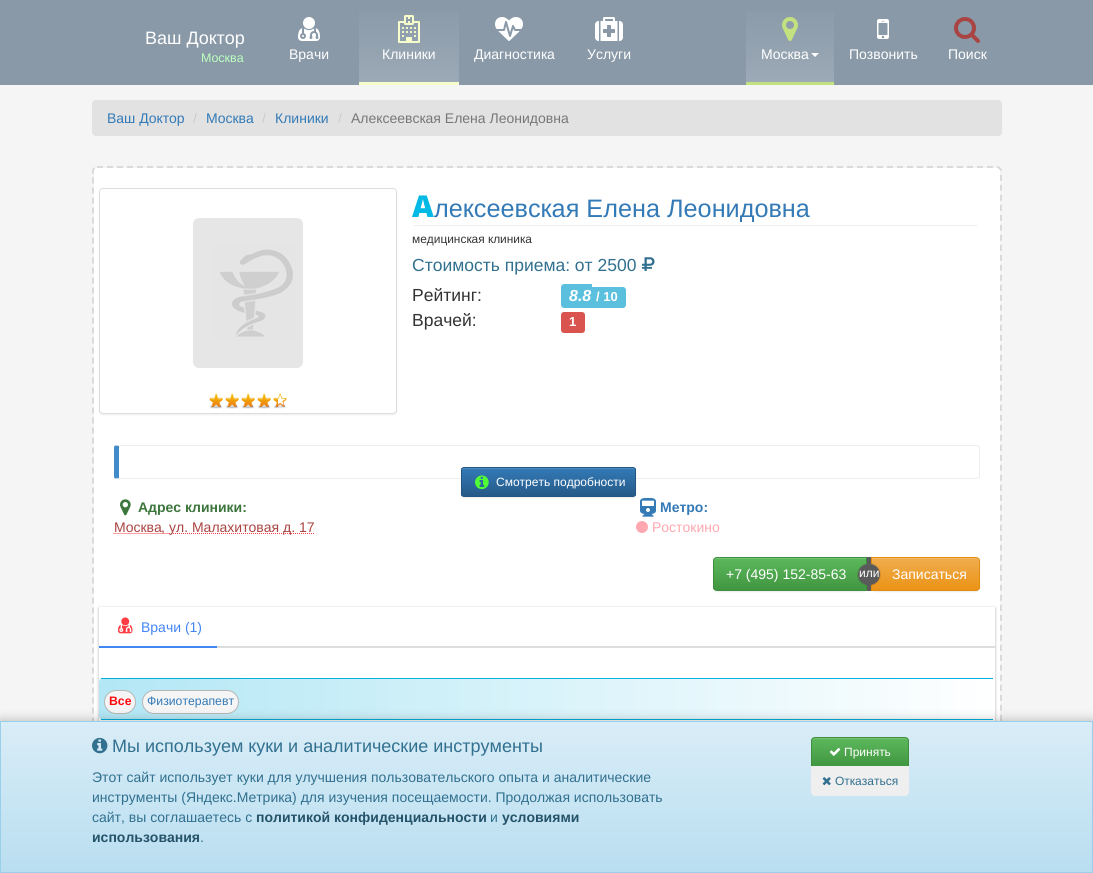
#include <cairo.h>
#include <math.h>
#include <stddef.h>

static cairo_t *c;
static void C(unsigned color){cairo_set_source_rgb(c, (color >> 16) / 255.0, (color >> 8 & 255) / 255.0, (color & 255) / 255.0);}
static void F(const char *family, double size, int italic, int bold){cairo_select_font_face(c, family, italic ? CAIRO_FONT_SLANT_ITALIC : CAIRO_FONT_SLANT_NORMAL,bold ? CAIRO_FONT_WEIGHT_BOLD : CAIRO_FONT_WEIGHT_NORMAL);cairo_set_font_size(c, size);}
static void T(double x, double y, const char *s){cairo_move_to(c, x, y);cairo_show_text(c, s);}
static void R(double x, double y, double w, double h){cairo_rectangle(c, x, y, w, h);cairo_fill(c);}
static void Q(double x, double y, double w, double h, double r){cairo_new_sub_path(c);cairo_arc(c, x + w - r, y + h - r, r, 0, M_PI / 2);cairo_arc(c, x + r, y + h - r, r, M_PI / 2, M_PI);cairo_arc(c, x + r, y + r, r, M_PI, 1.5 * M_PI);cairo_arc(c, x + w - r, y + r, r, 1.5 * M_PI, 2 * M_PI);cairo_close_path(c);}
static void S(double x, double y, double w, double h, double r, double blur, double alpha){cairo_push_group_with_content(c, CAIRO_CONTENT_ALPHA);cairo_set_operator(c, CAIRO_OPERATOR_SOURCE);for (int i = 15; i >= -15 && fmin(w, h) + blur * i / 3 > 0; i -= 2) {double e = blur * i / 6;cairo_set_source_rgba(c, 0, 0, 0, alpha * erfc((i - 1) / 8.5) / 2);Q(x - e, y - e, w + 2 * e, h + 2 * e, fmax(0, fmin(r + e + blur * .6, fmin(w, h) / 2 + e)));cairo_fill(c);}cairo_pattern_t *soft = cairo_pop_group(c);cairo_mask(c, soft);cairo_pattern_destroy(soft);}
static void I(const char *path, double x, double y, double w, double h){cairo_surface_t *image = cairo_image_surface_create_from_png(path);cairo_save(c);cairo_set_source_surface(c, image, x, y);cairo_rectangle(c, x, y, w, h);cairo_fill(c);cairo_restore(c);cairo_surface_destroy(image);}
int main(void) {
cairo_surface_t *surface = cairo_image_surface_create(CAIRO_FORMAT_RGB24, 1093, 873);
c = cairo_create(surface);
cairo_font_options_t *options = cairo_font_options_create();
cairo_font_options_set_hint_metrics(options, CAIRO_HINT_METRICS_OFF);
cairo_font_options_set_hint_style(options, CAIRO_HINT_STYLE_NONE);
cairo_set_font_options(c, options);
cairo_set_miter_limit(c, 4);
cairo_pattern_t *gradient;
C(0xf5f5f5);
cairo_paint(c);
C(0x8999a8);
R(0,0,1093,85);
F("Liberation Sans",18,0,0);
C(0xffffff);
T(145,44,"Ваш Доктор");
F("Liberation Sans",12.5,0,0);
C(0xbbffbd);
T(201,62,"Москва");
I("1.png",298,17,22,24);
F("Liberation Sans",14,0,0);
C(0xffffff);
T(289,59,"Врачи");
gradient = cairo_pattern_create_linear(409,0,409,82);
cairo_pattern_add_color_stop_rgba(gradient,0,0.537,0.6,0.659,1);
cairo_pattern_add_color_stop_rgba(gradient,1,0.612,0.663,0.714,1);
cairo_set_source(c,gradient);
cairo_pattern_destroy(gradient);
R(359,11,100,71);
C(0xf7fdca);
R(359,82,100,3);
I("2.png",398,15,22,28);
C(0xffffff);
T(382,59,"Клиники");
I("3.png",495,17,28,24);
T(474,59,"Диагностика");
I("4.png",595,17,28,24);
T(587,59,"Услуги");
gradient = cairo_pattern_create_linear(790,0,790,82);
cairo_pattern_add_color_stop_rgba(gradient,0,0.537,0.6,0.659,1);
cairo_pattern_add_color_stop_rgba(gradient,1,0.612,0.663,0.714,1);
cairo_set_source(c,gradient);
cairo_pattern_destroy(gradient);
R(746,11,88,71);
C(0xc4e17f);
R(746,82,88,3);
I("5.png",782,17,16,24);
C(0xffffff);
T(761,59,"Москва");
cairo_new_path(c);
cairo_move_to(c,811,53);
cairo_line_to(c,819,53);
cairo_line_to(c,815,57);
cairo_close_path(c);
cairo_fill(c);
I("6.png",877,19,12,20);
T(849,59,"Позвонить");
I("7.png",954,17,26,26);
T(948,59,"Поиск");
C(0xe2e2e2);
Q(92,100,910,36,4);
cairo_fill(c);
C(0x337ab7);
T(107,123,"Ваш Доктор");
C(0xcccccc);
T(193,123,"/");
C(0x337ab7);
T(206,123,"Москва");
C(0xcccccc);
T(262,123,"/");
C(0x337ab7);
T(275,123,"Клиники");
C(0xcccccc);
T(338,123,"/");
C(0x777777);
T(351,123,"Алексеевская Елена Леонидовна");
C(0xffffff);
Q(94,168,906,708,3);
cairo_fill(c);
cairo_new_path(c);
cairo_move_to(c,97,167);
cairo_line_to(c,997,167);
cairo_curve_to(c,999,167,1001,169,1001,171);
cairo_line_to(c,1001,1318);
cairo_curve_to(c,1001,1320,999,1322,997,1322);
cairo_line_to(c,97,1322);
cairo_curve_to(c,95,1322,93,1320,93,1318);
cairo_line_to(c,93,171);
cairo_curve_to(c,93,169,95,167,97,167);
cairo_close_path(c);
C(0xdadada);
cairo_set_dash(c,(double[]){6,4},2,0);
cairo_stroke(c);
C(0x000000);
S(99,189,298,226,4,1,.07);
C(0xffffff);
Q(99.5,188.5,297,225,3.5);
cairo_fill_preserve(c);
C(0xdddddd);
cairo_set_line_width(c,1);
cairo_set_dash(c,NULL,0,0);
cairo_stroke(c);
I("8.png",193,218,110,150);
I("9.png",209,393,78,16);
I("10.png",209,394,69,15);
C(0xeeeeee);
R(414,225,563,1);
F("Noto Sans Black",30,0,0);
C(0x00b9e5);
T(412,217,"А");
F("Liberation Sans",25.25,0,0);
C(0x337ab7);
T(434,217,"лексеевская Елена Леонидовна");
F("Liberation Sans",11.9,0,0);
C(0x333333);
T(412,243,"медицинская клиника");
F("Liberation Sans",17.5,0,0);
C(0x31708f);
T(412,271,"Стоимость приема: от 2500");
I("11.png",642,257,13,14);
C(0x333333);
T(412,301,"Рейтинг:");
C(0x5bc0de);
cairo_new_path(c);
cairo_move_to(c,564,284);
cairo_line_to(c,592,284);
cairo_line_to(c,592,308);
cairo_line_to(c,564,308);
cairo_curve_to(c,562.5,308,561,306.5,561,305);
cairo_line_to(c,561,287);
cairo_curve_to(c,561,285.5,562.5,284,564,284);
cairo_close_path(c);
cairo_fill(c);
cairo_new_path(c);
cairo_move_to(c,592,287);
cairo_line_to(c,623,287);
cairo_curve_to(c,624.5,287,626,288.5,626,290);
cairo_line_to(c,626,305);
cairo_curve_to(c,626,306.5,624.5,308,623,308);
cairo_line_to(c,592,308);
cairo_close_path(c);
cairo_fill(c);
F("Liberation Sans",16,1,1);
C(0xffffff);
T(569,301,"8.8");
F("Liberation Sans",13,0,1);
T(596,301,"/ 10");
F("Liberation Sans",17.5,0,0);
C(0x333333);
T(412,326,"Врачей:");
C(0xd9534f);
Q(561,312,24,21,3);
cairo_fill(c);
F("Liberation Sans",13,0,1);
C(0xffffff);
T(569,326,"1");
C(0xeeeeee);
cairo_new_path(c);
cairo_move_to(c,117,445);
cairo_line_to(c,115,445);
cairo_line_to(c,119,446);
cairo_line_to(c,977,446);
cairo_line_to(c,978,447);
cairo_line_to(c,979,446);
cairo_line_to(c,977,445);
cairo_close_path(c);
cairo_fill(c);
cairo_new_path(c);
cairo_move_to(c,980,476);
cairo_line_to(c,980,448);
cairo_curve_to(c,980,447,980,446,979,446);
cairo_line_to(c,978.5,446.5);
cairo_line_to(c,979,448);
cairo_line_to(c,979,476);
cairo_line_to(c,978.5,477.5);
cairo_line_to(c,979,478);
cairo_curve_to(c,980,478,980,477,980,476);
cairo_close_path(c);
cairo_fill(c);
cairo_new_path(c);
cairo_move_to(c,117,479);
cairo_line_to(c,977,479);
cairo_line_to(c,979,478);
cairo_line_to(c,978,477);
cairo_line_to(c,977,478);
cairo_line_to(c,119,478);
cairo_line_to(c,115,479);
cairo_close_path(c);
cairo_fill(c);
C(0x428bca);
cairo_new_path(c);
cairo_move_to(c,119,446);
cairo_line_to(c,115.5,445.5);
cairo_curve_to(c,114.5,445.5,114,446.5,114,448);
cairo_line_to(c,114,476);
cairo_curve_to(c,114,477.5,114.5,478.5,115.5,478.5);
cairo_line_to(c,119,478);
cairo_close_path(c);
cairo_fill(c);
C(0x000000);
S(461,468,175,30,3,.5,.07);
cairo_save(c);
Q(461,467,175,30,3);
cairo_clip(c);
gradient = cairo_pattern_create_linear(549,468,549,496);
cairo_pattern_add_color_stop_rgba(gradient,0,0.2,0.478,0.718,1);
cairo_pattern_add_color_stop_rgba(gradient,1,0.149,0.353,0.533,1);
cairo_set_source(c,gradient);
cairo_pattern_destroy(gradient);
R(461,468,175,28);
cairo_restore(c);
C(0x528dc1);
cairo_new_path(c);
cairo_move_to(c,464,469);
cairo_line_to(c,633,469);
cairo_curve_to(c,634,469,635,470,635,471);
cairo_curve_to(c,635,470,635,468,633,468);
cairo_line_to(c,463,468);
cairo_curve_to(c,462,469,462,470,462,471);
cairo_curve_to(c,462,470,463,469,464,469);
cairo_close_path(c);
cairo_fill(c);
Q(461.5,467.5,174,29,2.5);
C(0x245580);
cairo_stroke(c);
I("12.png",475,475,14,15);
F("Liberation Sans",12,0,0);
C(0xffffff);
T(496,486,"Смотреть подробности");
I("13.png",120,499,11,17);
F("Liberation Sans",14,0,1);
C(0x3c763d);
T(138,512,"Адрес клиники:");
F("Liberation Sans",14,0,0);
C(0xa94442);
T(114,532,"Москва");
cairo_new_path(c);
cairo_move_to(c,161.5,533.5);
cairo_line_to(c,169,533.5);
C(0xff3b43);
cairo_set_dash(c,(double[]){1,1},2,0);
cairo_stroke(c);
C(0xa94442);
T(161,532,",");
cairo_new_path(c);
cairo_move_to(c,113.5,533.5);
cairo_line_to(c,161.5,533.5);
C(0xff3b43);
cairo_stroke(c);
cairo_new_path(c);
cairo_move_to(c,169,533.5);
cairo_line_to(c,314.5,533.5);
cairo_stroke(c);
C(0xa94442);
T(169,532,"ул. Малахитовая д. 17");
I("14.png",640,498,16,19);
F("Liberation Sans",14,0,1);
C(0x337ab7);
T(660,512,"Метро:");
I("15.png",636,521,12,12);
F("Liberation Sans",14,0,0);
C(0xffa8af);
T(652,532,"Ростокино");
C(0x000000);
S(713,558,154,34,4,.5,.07);
cairo_save(c);
cairo_new_path(c);
cairo_move_to(c,717,557);
cairo_line_to(c,867,557);
cairo_line_to(c,867,591);
cairo_line_to(c,717,591);
cairo_curve_to(c,715,591,713,589,713,587);
cairo_line_to(c,713,561);
cairo_curve_to(c,713,559,715,557,717,557);
cairo_close_path(c);
cairo_clip(c);
gradient = cairo_pattern_create_linear(790,558,790,590);
cairo_pattern_add_color_stop_rgba(gradient,0,0.361,0.722,0.361,1);
cairo_pattern_add_color_stop_rgba(gradient,1,0.255,0.588,0.255,1);
cairo_set_source(c,gradient);
cairo_pattern_destroy(gradient);
R(713,558,153,32);
cairo_restore(c);
C(0x74c274);
cairo_new_path(c);
cairo_move_to(c,716,559);
cairo_line_to(c,866,559);
cairo_line_to(c,866,558);
cairo_line_to(c,716,558);
cairo_curve_to(c,714,558,714,560,714,562);
cairo_curve_to(c,714,560,715,559,716,559);
cairo_close_path(c);
cairo_fill(c);
cairo_new_path(c);
cairo_move_to(c,717,557.5);
cairo_line_to(c,866.5,557.5);
cairo_line_to(c,866.5,590.5);
cairo_line_to(c,717,590.5);
cairo_curve_to(c,715,590.5,713.5,589,713.5,587);
cairo_line_to(c,713.5,561);
cairo_curve_to(c,713.5,559,715,557.5,717,557.5);
cairo_close_path(c);
C(0x3e8f3e);
cairo_set_dash(c,NULL,0,0);
cairo_stroke(c);
C(0xffffff);
T(726,579,"+7 (495) 152-85-63");
C(0x000000);
S(871,558,109,34,4,.5,.07);
cairo_save(c);
cairo_new_path(c);
cairo_move_to(c,871,557);
cairo_line_to(c,976,557);
cairo_curve_to(c,978,557,980,559,980,561);
cairo_line_to(c,980,587);
cairo_curve_to(c,980,589,978,591,976,591);
cairo_line_to(c,871,591);
cairo_close_path(c);
cairo_clip(c);
gradient = cairo_pattern_create_linear(926,558,926,590);
cairo_pattern_add_color_stop_rgba(gradient,0,0.941,0.678,0.306,1);
cairo_pattern_add_color_stop_rgba(gradient,1,0.922,0.576,0.086,1);
cairo_set_source(c,gradient);
cairo_pattern_destroy(gradient);
R(872,558,108,32);
cairo_restore(c);
C(0xf2b968);
cairo_new_path(c);
cairo_move_to(c,872,559);
cairo_line_to(c,976,559);
cairo_curve_to(c,978,559,979,560,979,562);
cairo_line_to(c,979,560);
cairo_curve_to(c,979,559,978,558,976,558);
cairo_line_to(c,872,558);
cairo_close_path(c);
cairo_fill(c);
cairo_new_path(c);
cairo_move_to(c,871.5,557.5);
cairo_line_to(c,976,557.5);
cairo_curve_to(c,978,557.5,979.5,559,979.5,561);
cairo_line_to(c,979.5,587);
cairo_curve_to(c,979.5,589,978,590.5,976,590.5);
cairo_line_to(c,871.5,590.5);
cairo_close_path(c);
C(0xe38d13);
cairo_stroke(c);
Q(857.5,563.5,23,22,11);
cairo_set_source_rgba(c,0,0,0,0.1);
cairo_stroke(c);
C(0x5a5a5a);
R(867,557,4,7);
Q(858,564,22,21,10.5);
cairo_fill(c);
R(867,584,4,7);
F("Liberation Sans",12,0,0);
C(0xffffff);
T(859,577,"или");
F("Liberation Sans",14,0,0);
T(892,579,"Записаться");
cairo_save(c);
cairo_set_fill_rule(c,CAIRO_FILL_RULE_EVEN_ODD);
cairo_new_path(c);
cairo_move_to(c,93,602);
cairo_line_to(c,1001,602);
cairo_line_to(c,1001,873);
cairo_line_to(c,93,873);
cairo_close_path(c);
cairo_move_to(c,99,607);
cairo_line_to(c,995,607);
cairo_line_to(c,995,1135);
cairo_line_to(c,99,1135);
cairo_close_path(c);
cairo_clip(c);
C(0x000000);
S(99,608,896,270,0,1.5,.3);
cairo_restore(c);
C(0xdddddd);
R(217,646,778,2);
I("16.png",118,617,15,17);
C(0x4285f4);
T(141,632,"Врачи (1)");
R(99,646,118,2);
gradient = cairo_pattern_create_linear(99,699,995,699);
cairo_pattern_add_color_stop_rgba(gradient,0,0.702,0.906,0.961,1);
cairo_pattern_add_color_stop_rgba(gradient,.5,0.851,0.953,0.98,1);
cairo_pattern_add_color_stop_rgba(gradient,1,1,1,1,1);
cairo_set_source(c,gradient);
cairo_pattern_destroy(gradient);
Q(99,678,896,42,4);
cairo_fill(c);
C(0x00b0dd);
R(101,678,892,1);
R(101,719,892,1);
C(0xf5f5f5);
Q(104.5,690.5,31,23,11.5);
cairo_fill_preserve(c);
C(0xb6b6b6);
cairo_stroke(c);
F("Liberation Sans",12.25,0,1);
C(0xff090e);
T(109,705,"Все");
C(0xf5f5f5);
Q(142.5,690.5,96,23,11.5);
cairo_fill_preserve(c);
C(0xb6b6b6);
cairo_stroke(c);
F("Liberation Sans",12.25,0,0);
C(0x337ab7);
T(147,705,"Физиотерапевт");
C(0x000000);
S(0,719,1093,152,0,5,.2);
gradient = cairo_pattern_create_linear(547,722,547,872);
cairo_pattern_add_color_stop_rgba(gradient,0,0.851,0.929,0.969,1);
cairo_pattern_add_color_stop_rgba(gradient,1,0.725,0.871,0.941,1);
cairo_set_source(c,gradient);
cairo_pattern_destroy(gradient);
R(1,722,1091,150);
cairo_rectangle(c,.5,721.5,1092,151);
C(0x9acfea);
cairo_stroke(c);
I("17.png",92,737,16,17);
F("Liberation Sans",18,0,0);
C(0x31708f);
T(112,752,"Мы используем куки и аналитические инструменты");
F("Liberation Sans",14,0,0);
T(92,782,"Этот сайт использует куки для улучшения пользовательского опыта и аналитические");
T(92,802,"инструменты (Яндекс.Метрика) для изучения посещаемости. Продолжая использовать");
T(92,822,"сайт, вы соглашаетесь с");
F("Liberation Sans",14,0,1);
C(0x245269);
T(256,822,"политикой конфиденциальности");
F("Liberation Sans",14,0,0);
C(0x31708f);
T(490,822,"и");
F("Liberation Sans",14,0,1);
C(0x245269);
T(502,822,"условиями");
T(92,842,"использования");
F("Liberation Sans",14,0,0);
C(0x31708f);
T(200,842,".");
cairo_save(c);
cairo_new_path(c);
cairo_move_to(c,815,737);
cairo_line_to(c,905,737);
cairo_curve_to(c,907,737,909,739,909,741);
cairo_line_to(c,909,767);
cairo_line_to(c,811,767);
cairo_line_to(c,811,741);
cairo_curve_to(c,811,739,813,737,815,737);
cairo_close_path(c);
cairo_clip(c);
gradient = cairo_pattern_create_linear(860,738,860,766);
cairo_pattern_add_color_stop_rgba(gradient,0,0.361,0.722,0.361,1);
cairo_pattern_add_color_stop_rgba(gradient,1,0.255,0.588,0.255,1);
cairo_set_source(c,gradient);
cairo_pattern_destroy(gradient);
R(811,738,98,28);
cairo_restore(c);
C(0x74c274);
cairo_new_path(c);
cairo_move_to(c,815,739);
cairo_line_to(c,905,739);
cairo_curve_to(c,907,739,908,740,908,742);
cairo_curve_to(c,908,734,893,738,890,738);
cairo_line_to(c,830,738);
cairo_curve_to(c,827,738,812,734,812,742);
cairo_curve_to(c,812,740,813,739,815,739);
cairo_close_path(c);
cairo_fill(c);
cairo_new_path(c);
cairo_move_to(c,815,737.5);
cairo_line_to(c,905,737.5);
cairo_curve_to(c,907,737.5,908.5,739,908.5,741);
cairo_line_to(c,908.5,766.5);
cairo_line_to(c,811.5,766.5);
cairo_line_to(c,811.5,741);
cairo_curve_to(c,811.5,739,813,737.5,815,737.5);
cairo_close_path(c);
C(0x3e8f3e);
cairo_stroke(c);
I("18.png",829,748,12,8);
F("Liberation Sans",12,0,0);
C(0xffffff);
T(844,756,"Принять");
C(0xefefef);
cairo_new_path(c);
cairo_move_to(c,811,766);
cairo_line_to(c,909,766);
cairo_line_to(c,909,792);
cairo_curve_to(c,909,794,907,796,905,796);
cairo_line_to(c,815,796);
cairo_curve_to(c,813,796,811,794,811,792);
cairo_close_path(c);
cairo_fill(c);
I("19.png",822,777,9,9);
C(0x31708f);
T(835,785,"Отказаться");
cairo_surface_write_to_png(surface, "o.png");
cairo_font_options_destroy(options);
cairo_destroy(c);
cairo_surface_destroy(surface);
return 0;
}
